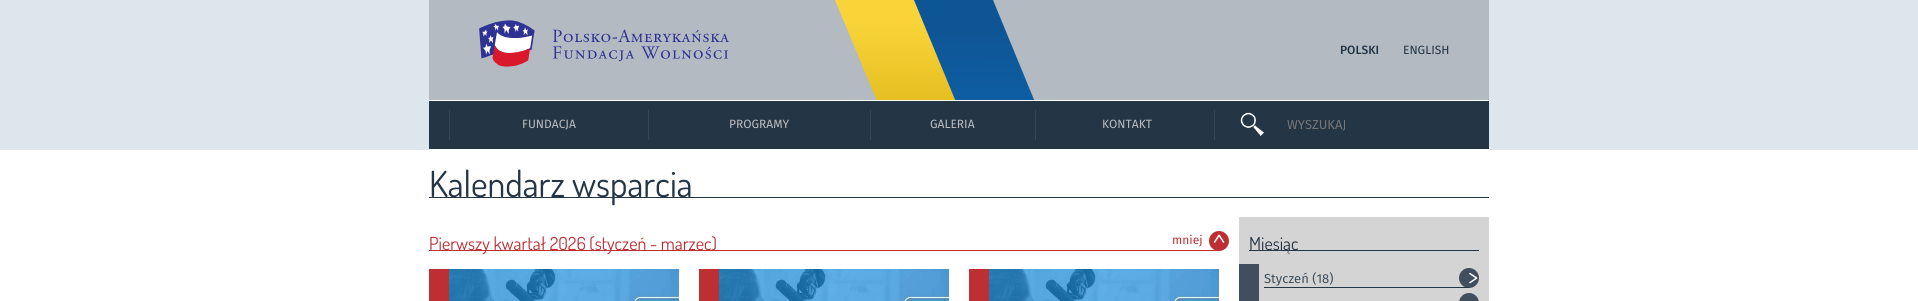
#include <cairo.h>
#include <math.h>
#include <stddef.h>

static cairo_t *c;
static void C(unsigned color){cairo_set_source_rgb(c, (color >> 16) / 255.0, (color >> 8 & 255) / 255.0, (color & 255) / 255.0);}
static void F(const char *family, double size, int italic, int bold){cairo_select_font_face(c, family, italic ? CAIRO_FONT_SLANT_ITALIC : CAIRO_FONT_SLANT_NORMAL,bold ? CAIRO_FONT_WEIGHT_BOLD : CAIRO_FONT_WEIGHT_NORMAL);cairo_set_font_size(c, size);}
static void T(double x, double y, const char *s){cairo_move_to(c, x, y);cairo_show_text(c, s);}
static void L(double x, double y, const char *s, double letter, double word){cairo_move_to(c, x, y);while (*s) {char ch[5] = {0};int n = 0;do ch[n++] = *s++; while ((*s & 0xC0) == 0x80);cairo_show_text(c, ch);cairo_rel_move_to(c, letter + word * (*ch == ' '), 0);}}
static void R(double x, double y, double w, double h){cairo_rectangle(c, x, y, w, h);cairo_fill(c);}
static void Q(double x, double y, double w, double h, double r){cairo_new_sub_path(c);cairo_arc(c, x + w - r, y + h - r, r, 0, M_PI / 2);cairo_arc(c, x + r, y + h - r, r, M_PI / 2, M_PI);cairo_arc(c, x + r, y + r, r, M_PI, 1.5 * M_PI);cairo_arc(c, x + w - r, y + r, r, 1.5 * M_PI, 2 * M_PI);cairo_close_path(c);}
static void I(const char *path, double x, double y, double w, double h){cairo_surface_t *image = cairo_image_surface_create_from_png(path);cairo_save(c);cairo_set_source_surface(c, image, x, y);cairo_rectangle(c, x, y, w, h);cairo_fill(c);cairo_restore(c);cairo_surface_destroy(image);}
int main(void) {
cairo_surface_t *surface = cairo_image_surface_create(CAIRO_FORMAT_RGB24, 1918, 301);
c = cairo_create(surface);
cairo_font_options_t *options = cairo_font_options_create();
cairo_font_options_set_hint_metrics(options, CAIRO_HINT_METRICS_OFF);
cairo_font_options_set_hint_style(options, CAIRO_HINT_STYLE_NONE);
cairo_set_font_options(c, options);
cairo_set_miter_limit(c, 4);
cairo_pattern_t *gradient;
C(0xffffff);
cairo_paint(c);
C(0xdde6ed);
R(0,0,1918,150);
C(0xb3bac1);
R(429,0,1060,100);
I("1.png",479,20,250,47);
cairo_save(c);
cairo_rectangle(c,835,0,265,100);
cairo_clip(c);
gradient = cairo_pattern_create_linear(881,23,882,189);
cairo_pattern_add_color_stop_rgba(gradient,0,0.976,0.831,0.224,1);
cairo_pattern_add_color_stop_rgba(gradient,1,0.812,0.659,0.027,1);
cairo_set_source(c,gradient);
cairo_pattern_destroy(gradient);
cairo_new_path(c);
cairo_move_to(c,835,0);
cairo_line_to(c,914,0);
cairo_line_to(c,1021,260);
cairo_line_to(c,943,260);
cairo_close_path(c);
cairo_fill(c);
gradient = cairo_pattern_create_linear(1038,216,1040,30);
cairo_pattern_add_color_stop_rgba(gradient,0,0.051,0.42,0.729,1);
cairo_pattern_add_color_stop_rgba(gradient,1,0.055,0.333,0.584,1);
cairo_set_source(c,gradient);
cairo_pattern_destroy(gradient);
cairo_new_path(c);
cairo_move_to(c,914,0);
cairo_line_to(c,993,0);
cairo_line_to(c,1100,260);
cairo_line_to(c,1021,260);
cairo_close_path(c);
cairo_fill(c);
cairo_restore(c);
F("Fira Sans Medium",12,0,0);
C(0x243546);
T(1340,54,"POLSKI");
F("Fira Sans",12,0,0);
T(1403,54,"ENGLISH");
R(429,101,1060,48);
C(0xffffff);
R(429,100,1060,1);
R(429,149,1060,1);
C(0x344557);
R(449,110,1,30);
C(0xbcbcbc);
T(522,128,"FUNDACJA");
C(0x344557);
R(648,110,1,30);
C(0xbcbcbc);
T(729,128,"PROGRAMY");
C(0x344557);
R(870,110,1,30);
C(0xbcbcbc);
T(930,128,"GALERIA");
C(0x344557);
R(1035,110,1,30);
C(0xbcbcbc);
T(1102,128,"KONTAKT");
C(0x344557);
R(1214,110,1,30);
I("2.png",1240,112,25,24);
F("Fira Sans",13,0,0);
C(0x757575);
T(1287,129,"WYSZUKAJ");
F("Dosis",36,0,0);
C(0x243546);
T(429,197,"Kalendarz wsparcia");
R(429,197,1060,1);
F("Dosis",18,0,0);
C(0xbe2f33);
T(429,250,"Pierwszy kwartał 2026 (styczeń - marzec)");
F("Fira Sans",12,0,0);
T(1172,244,"mniej");
R(429,250,790,1);
cairo_new_path(c);
cairo_arc(c,1219,241,10,0,2 * M_PI);
cairo_fill(c);
F("Dosis",25,0,0);
C(0xffffff);
cairo_save(c);
cairo_translate(c,1226,244);
cairo_rotate(c,-90 * M_PI / 180);
L(0,0,">",-5,0);
cairo_restore(c);
C(0xbe2f33);
R(429,269,20,32);
I("3.png",449,269,230,32);
R(699,269,20,32);
I("4.png",719,269,230,32);
R(969,269,20,32);
I("4.png",989,269,230,32);
C(0xd4d4d4);
R(1239,217,250,84);
F("Dosis",18,0,0);
C(0x243546);
T(1249,250,"Miesiąc");
R(1249,250,230,1);
C(0x404e5d);
R(1239,264,20,37);
F("Fira Sans",13,0,0);
T(1264,283,"Styczeń (18)");
cairo_new_path(c);
cairo_arc(c,1469,278,10,0,2 * M_PI);
cairo_fill(c);
F("Dosis",25,0,0);
C(0xffffff);
L(1468,285,">",-5,0);
C(0x243546);
R(1264,287,205,1);
C(0x404e5d);
Q(1459,293,20,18,10);
cairo_fill(c);
cairo_surface_write_to_png(surface, "o.png");
cairo_font_options_destroy(options);
cairo_destroy(c);
cairo_surface_destroy(surface);
return 0;
}
